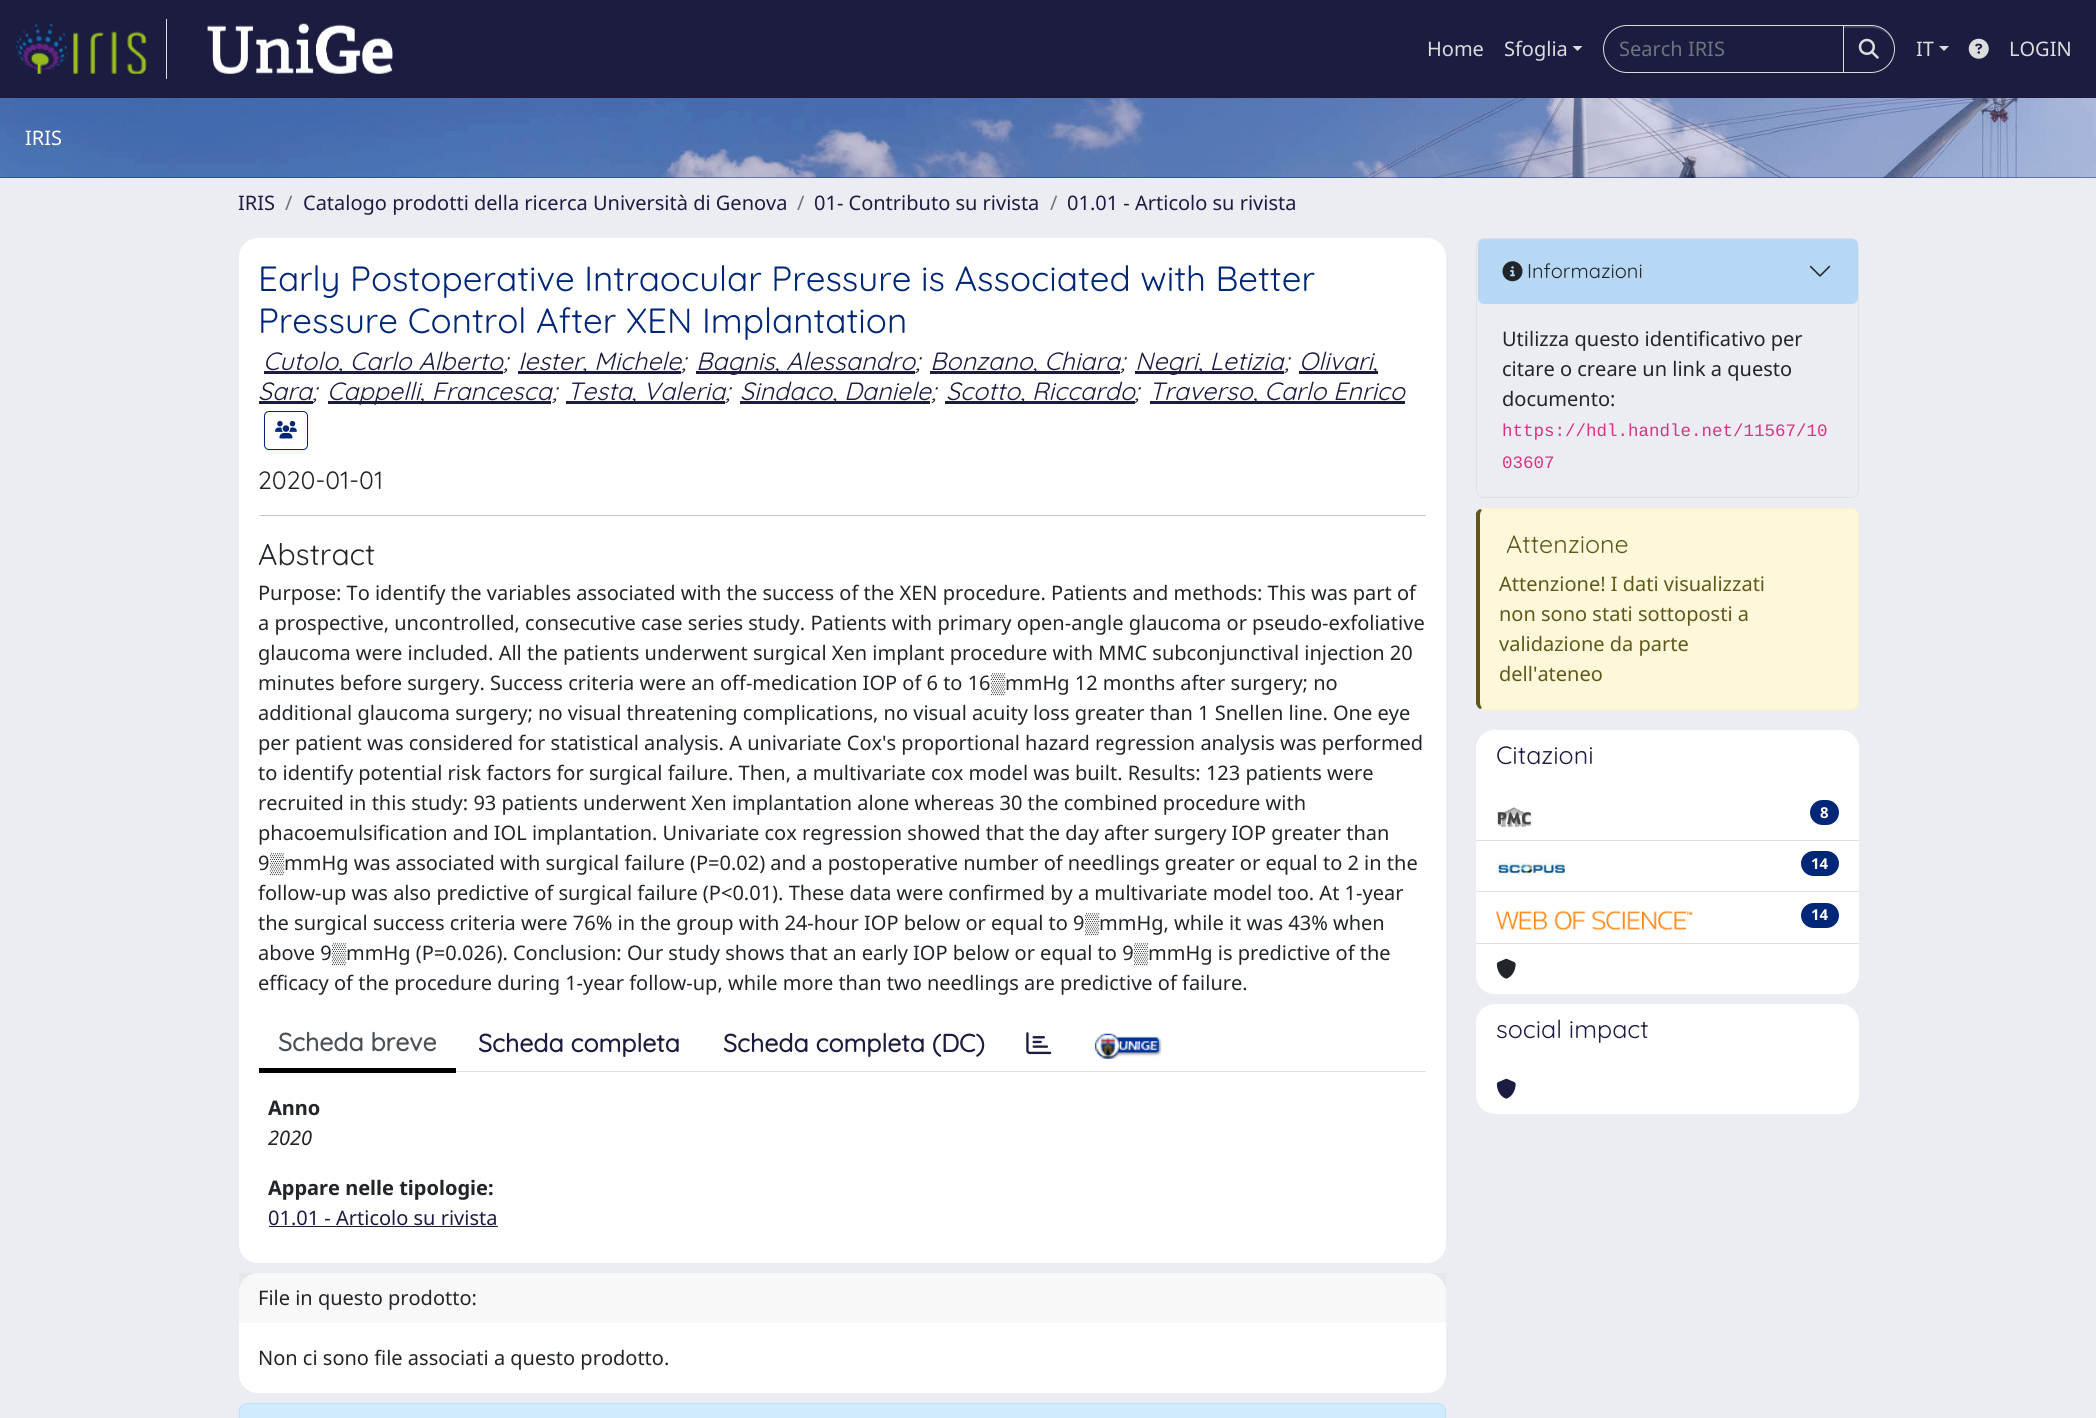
#include <cairo.h>
#include <math.h>
#include <stddef.h>

static cairo_t *c;
static void C(unsigned color){cairo_set_source_rgb(c, (color >> 16) / 255.0, (color >> 8 & 255) / 255.0, (color & 255) / 255.0);}
static void F(const char *family, double size, int italic, int bold){cairo_select_font_face(c, family, italic ? CAIRO_FONT_SLANT_ITALIC : CAIRO_FONT_SLANT_NORMAL,bold ? CAIRO_FONT_WEIGHT_BOLD : CAIRO_FONT_WEIGHT_NORMAL);cairo_set_font_size(c, size);}
static void T(double x, double y, const char *s){cairo_move_to(c, x, y);cairo_show_text(c, s);}
static void R(double x, double y, double w, double h){cairo_rectangle(c, x, y, w, h);cairo_fill(c);}
static void Q(double x, double y, double w, double h, double r){cairo_new_sub_path(c);cairo_arc(c, x + w - r, y + h - r, r, 0, M_PI / 2);cairo_arc(c, x + r, y + h - r, r, M_PI / 2, M_PI);cairo_arc(c, x + r, y + r, r, M_PI, 1.5 * M_PI);cairo_arc(c, x + w - r, y + r, r, 1.5 * M_PI, 2 * M_PI);cairo_close_path(c);}
static void S(double x, double y, double w, double h, double r, double blur, double alpha){cairo_push_group_with_content(c, CAIRO_CONTENT_ALPHA);cairo_set_operator(c, CAIRO_OPERATOR_SOURCE);for (int i = 15; i >= -15 && fmin(w, h) + blur * i / 3 > 0; i -= 2) {double e = blur * i / 6;cairo_set_source_rgba(c, 0, 0, 0, alpha * erfc((i - 1) / 8.5) / 2);Q(x - e, y - e, w + 2 * e, h + 2 * e, fmax(0, fmin(r + e + blur * .6, fmin(w, h) / 2 + e)));cairo_fill(c);}cairo_pattern_t *soft = cairo_pop_group(c);cairo_mask(c, soft);cairo_pattern_destroy(soft);}
static void I(const char *path, double x, double y, double w, double h){cairo_surface_t *image = cairo_image_surface_create_from_png(path);cairo_save(c);cairo_set_source_surface(c, image, x, y);cairo_rectangle(c, x, y, w, h);cairo_fill(c);cairo_restore(c);cairo_surface_destroy(image);}
int main(void) {
cairo_surface_t *surface = cairo_image_surface_create(CAIRO_FORMAT_RGB24, 2096, 1418);
c = cairo_create(surface);
cairo_font_options_t *options = cairo_font_options_create();
cairo_font_options_set_hint_metrics(options, CAIRO_HINT_METRICS_OFF);
cairo_font_options_set_hint_style(options, CAIRO_HINT_STYLE_NONE);
cairo_set_font_options(c, options);
cairo_set_miter_limit(c, 4);
C(0xecedf2);
cairo_paint(c);
C(0x1b1c40);
R(0,0,2096,98);
C(0xdddddd);
R(166,19,1,60);
I("1.png",15,23,132,51);
I("2.png",207,23,186,51);
F("Noto Sans",20,0,0);
T(1427,56,"Home");
T(1504,56,"Sfoglia");
cairo_new_path(c);
cairo_move_to(c,1572.5,46);
cairo_line_to(c,1582.5,46);
cairo_line_to(c,1577.5,51);
cairo_close_path(c);
cairo_fill(c);
cairo_new_path(c);
cairo_move_to(c,1627,25.5);
cairo_line_to(c,1843.5,25.5);
cairo_line_to(c,1843.5,72.5);
cairo_line_to(c,1627,72.5);
cairo_curve_to(c,1614,72.5,1603.5,62,1603.5,49);
cairo_curve_to(c,1603.5,36,1614,25.5,1627,25.5);
cairo_close_path(c);
cairo_set_line_width(c,1);
cairo_stroke(c);
C(0x6c757d);
T(1619,56,"Search IRIS");
C(0x000000);
S(1843,26,52,48,24,.5,.07);
C(0x1b1c40);
cairo_new_path(c);
cairo_move_to(c,1843,25);
cairo_line_to(c,1871,25);
cairo_curve_to(c,1884.5,25,1895,35.5,1895,49);
cairo_curve_to(c,1895,62.5,1884.5,73,1871,73);
cairo_line_to(c,1843,73);
cairo_close_path(c);
cairo_fill(c);
C(0x3d3e5d);
cairo_new_path(c);
cairo_move_to(c,1844,28);
cairo_line_to(c,1871,28);
cairo_curve_to(c,1884,28,1894,38,1894,49);
cairo_line_to(c,1894,48);
cairo_curve_to(c,1894,36,1884,26,1872,26);
cairo_line_to(c,1844,26);
cairo_close_path(c);
cairo_fill(c);
cairo_new_path(c);
cairo_move_to(c,1843.5,25.5);
cairo_line_to(c,1871,25.5);
cairo_curve_to(c,1884,25.5,1894.5,36,1894.5,49);
cairo_curve_to(c,1894.5,62,1884,72.5,1871,72.5);
cairo_line_to(c,1843.5,72.5);
cairo_close_path(c);
C(0xdddddd);
cairo_stroke(c);
I("3.png",1858,38,21,21);
T(1916,56,"IT");
cairo_new_path(c);
cairo_move_to(c,1939,46);
cairo_line_to(c,1949,46);
cairo_line_to(c,1944,51);
cairo_close_path(c);
cairo_fill(c);
I("4.png",1968,38,21,21);
T(2009,56,"LOGIN");
C(0x002677);
R(0,177,2096,1);
I("5.png",0,98,2096,80);
C(0xffffff);
T(25,145,"IRIS");
C(0x1b1c40);
T(238,210,"IRIS");
C(0x6c757d);
T(285,210,"/");
C(0x1b1c40);
T(303,210,"Catalogo prodotti della ricerca Università di Genova");
C(0x6c757d);
T(797,210,"/");
C(0x1b1c40);
T(814,210,"01- Contributo su rivista");
C(0x6c757d);
T(1050,210,"/");
C(0x1b1c40);
T(1067,210,"01.01 - Articolo su rivista");
C(0xffffff);
Q(239,238,1207,1025,19);
cairo_fill(c);
F("Quicksand Light",35,0,0);
C(0x002677);
T(258,291,"Early Postoperative Intraocular Pressure is Associated with Better");
T(258,333,"Pressure Control After XEN Implantation");
C(0x1b1c40);
R(264,371,239,3);
F("Quicksand Light",25,1,0);
T(263,370,"Cutolo, Carlo Alberto");
C(0x212529);
T(503,370,";");
C(0x1b1c40);
R(518,371,163,3);
T(518,370,"Iester, Michele");
C(0x212529);
T(681,370,";");
C(0x1b1c40);
R(696,371,219,3);
T(696,370,"Bagnis, Alessandro");
C(0x212529);
T(915,370,";");
C(0x1b1c40);
R(930,371,190,3);
T(930,370,"Bonzano, Chiara");
C(0x212529);
T(1120,370,";");
C(0x1b1c40);
R(1135,371,149,3);
T(1135,370,"Negri, Letizia");
C(0x212529);
T(1284,370,";");
C(0x1b1c40);
R(1299,371,79,3);
T(1299,370,"Olivari,");
T(258,400,"Sara");
R(259,401,54,3);
C(0x212529);
T(312,400,";");
C(0x1b1c40);
R(328,401,223,3);
T(327,400,"Cappelli, Francesca");
C(0x212529);
T(552,400,";");
C(0x1b1c40);
R(566,401,159,3);
T(567,400,"Testa, Valeria");
C(0x212529);
T(725,400,";");
C(0x1b1c40);
R(740,401,190,3);
T(740,400,"Sindaco, Daniele");
C(0x212529);
T(931,400,";");
C(0x1b1c40);
R(945,401,190,3);
T(946,400,"Scotto, Riccardo");
C(0x212529);
T(1134,400,";");
C(0x1b1c40);
R(1150,401,255,3);
T(1149,400,"Traverso, Carlo Enrico");
cairo_save(c);
cairo_set_fill_rule(c,CAIRO_FILL_RULE_EVEN_ODD);
cairo_new_path(c);
cairo_move_to(c,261,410);
cairo_line_to(c,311,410);
cairo_line_to(c,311,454);
cairo_line_to(c,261,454);
cairo_close_path(c);
cairo_move_to(c,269,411);
cairo_line_to(c,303,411);
cairo_curve_to(c,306,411,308,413,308,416);
cairo_line_to(c,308,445);
cairo_curve_to(c,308,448,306,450,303,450);
cairo_line_to(c,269,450);
cairo_curve_to(c,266,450,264,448,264,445);
cairo_line_to(c,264,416);
cairo_curve_to(c,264,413,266,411,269,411);
cairo_close_path(c);
cairo_clip(c);
C(0x000000);
S(264,413,44,38,5,.5,.07);
cairo_restore(c);
Q(264.5,411.5,43,38,4.5);
C(0x002677);
cairo_stroke(c);
I("6.png",275,420,22,19);
F("Quicksand Light",25,0,0);
C(0x212529);
T(258,489,"2020-01-01");
C(0xc8c9ca);
R(259,515,1167,1);
F("Quicksand Light",30,0,0);
C(0x212529);
T(258,565,"Abstract");
F("Noto Sans",20,0,0);
T(258,600,"Purpose: To identify the variables associated with the success of the XEN procedure. Patients and methods: This was part of");
T(258,630,"a prospective, uncontrolled, consecutive case series study. Patients with primary open-angle glaucoma or pseudo-exfoliative");
T(258,660,"glaucoma were included. All the patients underwent surgical Xen implant procedure with MMC subconjunctival injection 20");
T(258,690,"minutes before surgery. Success criteria were an off-medication IOP of 6 to 16");
F("Liberation Sans",20,0,0);
T(991,690,"▒");
F("Noto Sans",20,0,0);
T(1005,690,"mmHg 12 months after surgery; no");
T(258,720,"additional glaucoma surgery; no visual threatening complications, no visual acuity loss greater than 1 Snellen line. One eye");
T(258,750,"per patient was considered for statistical analysis. A univariate Cox's proportional hazard regression analysis was performed");
T(258,780,"to identify potential risk factors for surgical failure. Then, a multivariate cox model was built. Results: 123 patients were");
T(258,810,"recruited in this study: 93 patients underwent Xen implantation alone whereas 30 the combined procedure with");
T(258,840,"phacoemulsification and IOL implantation. Univariate cox regression showed that the day after surgery IOP greater than");
T(258,870,"9");
F("Liberation Sans",20,0,0);
T(270,870,"▒");
F("Noto Sans",20,0,0);
T(284,870,"mmHg was associated with surgical failure (P=0.02) and a postoperative number of needlings greater or equal to 2 in the");
T(258,900,"follow-up was also predictive of surgical failure (P<0.01). These data were confirmed by a multivariate model too. At 1-year");
T(258,930,"the surgical success criteria were 76% in the group with 24-hour IOP below or equal to 9");
F("Liberation Sans",20,0,0);
T(1085,930,"▒");
F("Noto Sans",20,0,0);
T(1099,930,"mmHg, while it was 43% when");
T(258,960,"above 9");
F("Liberation Sans",20,0,0);
T(332,960,"▒");
F("Noto Sans",20,0,0);
T(346,960,"mmHg (P=0.026). Conclusion: Our study shows that an early IOP below or equal to 9");
F("Liberation Sans",20,0,0);
T(1134,960,"▒");
F("Noto Sans",20,0,0);
T(1148,960,"mmHg is predictive of the");
T(258,990,"efficacy of the procedure during 1-year follow-up, while more than two needlings are predictive of failure.");
C(0xdee2e6);
R(456,1071,970,1);
C(0x000000);
R(259,1068,197,5);
F("Quicksand",25,0,1);
C(0x495057);
T(278,1051,"Scheda breve");
C(0x1b1c40);
T(478,1052,"Scheda completa");
T(723,1052,"Scheda completa (DC)");
I("7.png",1026,1032,26,23);
I("8.png",1094,1033,68,26);
F("Noto Sans",20,0,1);
C(0x212529);
T(268,1115,"Anno");
F("Noto Sans",20,1,0);
T(268,1145,"2020");
F("Noto Sans",20,0,1);
T(268,1195,"Appare nelle tipologie:");
F("Noto Sans",20,0,0);
C(0x1b1c40);
T(268,1225,"01.01 - Articolo su rivista");
R(269,1226,229,1);
C(0xffffff);
Q(239,1273,1207,120,19);
cairo_fill(c);
cairo_set_source_rgba(c,0,0,0,0.03);
R(239,1273,1207,50);
C(0x212529);
T(258,1305,"File in questo prodotto:");
T(258,1365,"Non ci sono file associati a questo prodotto.");
C(0xd1ebfe);
Q(239.5,1403.5,1206,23,7.5);
cairo_fill_preserve(c);
C(0xbae1fe);
cairo_stroke(c);
Q(1476.5,238.5,382,259,7.5);
C(0xdee2e6);
cairo_stroke(c);
cairo_set_source_rgba(c,0.098,0.608,0.988,0.25);
Q(1478,239,380,65,6);
cairo_fill(c);
I("9.png",1502,261,21,21);
F("Quicksand Light",20,0,0);
C(0x212529);
T(1527,278,"Informazioni");
I("10.png",1809,265,22,12);
F("Noto Sans",20,0,0);
T(1502,346,"Utilizza questo identificativo per");
T(1502,376,"citare o creare un link a questo");
T(1502,406,"documento:");
F("Liberation Mono",17.5,0,0);
C(0xd63384);
T(1502,436,"https://hdl.handle.net/11567/10");
T(1502,468,"03607");
C(0xfdf8d9);
cairo_new_path(c);
cairo_move_to(c,1484,509);
cairo_line_to(c,1851,509);
cairo_curve_to(c,1855,509,1858,512,1858,515);
cairo_line_to(c,1858,702);
cairo_curve_to(c,1858,706,1855,709,1851,709);
cairo_line_to(c,1484,709);
cairo_curve_to(c,1482,709,1480,706,1480,702);
cairo_line_to(c,1480,515);
cairo_curve_to(c,1480,512,1482,509,1484,509);
cairo_close_path(c);
cairo_fill(c);
C(0xfcf4c6);
cairo_new_path(c);
cairo_move_to(c,1484,508);
cairo_line_to(c,1480,509);
cairo_line_to(c,1482,510);
cairo_line_to(c,1484,509);
cairo_line_to(c,1851,509);
cairo_curve_to(c,1853,509,1854,510,1856,511);
cairo_line_to(c,1856,510);
cairo_curve_to(c,1855,509,1853,508,1851,508);
cairo_close_path(c);
cairo_fill(c);
cairo_new_path(c);
cairo_move_to(c,1856,510);
cairo_line_to(c,1859,513);
cairo_line_to(c,1859,704);
cairo_line_to(c,1857,708);
cairo_line_to(c,1856,707);
cairo_curve_to(c,1857,706,1858,704,1858,702);
cairo_line_to(c,1858,515);
cairo_curve_to(c,1858,513,1857,512,1856,511);
cairo_close_path(c);
cairo_fill(c);
cairo_new_path(c);
cairo_move_to(c,1484,710);
cairo_line_to(c,1851,710);
cairo_curve_to(c,1853,710,1855,709,1857,708);
cairo_line_to(c,1856,707);
cairo_curve_to(c,1855,708,1853,709,1852,709);
cairo_line_to(c,1484,709);
cairo_line_to(c,1482,708);
cairo_line_to(c,1480,709);
cairo_close_path(c);
cairo_fill(c);
C(0x62571a);
cairo_new_path(c);
cairo_move_to(c,1476,513);
cairo_curve_to(c,1477,511,1478,510,1480,509);
cairo_line_to(c,1482,510);
cairo_curve_to(c,1481,511,1480,513,1480,515);
cairo_line_to(c,1480,702);
cairo_curve_to(c,1480,705,1481,707,1482,708);
cairo_line_to(c,1480,709);
cairo_curve_to(c,1478,708,1477,706,1476,704);
cairo_close_path(c);
cairo_fill(c);
F("Quicksand Light",25,0,0);
T(1506,553,"Attenzione");
F("Noto Sans",20,0,0);
T(1499,591,"Attenzione! I dati visualizzati");
T(1499,621,"non sono stati sottoposti a");
T(1499,651,"validazione da parte");
T(1499,681,"dell'ateneo");
C(0xffffff);
Q(1476,730,383,264,19);
cairo_fill(c);
cairo_new_path(c);
cairo_move_to(c,1495,730);
cairo_line_to(c,1840,730);
cairo_curve_to(c,1850.5,730,1859,738.5,1859,749);
cairo_line_to(c,1859,790);
cairo_line_to(c,1476,790);
cairo_line_to(c,1476,749);
cairo_curve_to(c,1476,738.5,1484.5,730,1495,730);
cairo_close_path(c);
cairo_fill(c);
F("Quicksand Light",25,0,0);
C(0x1b1c40);
T(1496,764,"Citazioni");
C(0xdfdfdf);
R(1476,840,383,1);
I("11.png",1497,807,35,20);
C(0x002677);
Q(1810,800,29,25,12.5);
cairo_fill(c);
F("Noto Sans",15,0,1);
C(0xffffff);
T(1820,818,"8");
C(0xdfdfdf);
R(1476,891,383,1);
I("12.png",1496,858,69,17);
C(0x002677);
Q(1801,851,38,25,12.5);
cairo_fill(c);
C(0xffffff);
T(1811,869,"14");
C(0xdfdfdf);
R(1476,943,383,1);
I("13.png",1496,911,197,19);
C(0x002677);
Q(1801,903,38,25,12.5);
cairo_fill(c);
C(0xffffff);
T(1811,920,"14");
cairo_new_path(c);
cairo_move_to(c,1476,944);
cairo_line_to(c,1859,944);
cairo_line_to(c,1859,975);
cairo_curve_to(c,1859,985.5,1850.5,994,1840,994);
cairo_line_to(c,1495,994);
cairo_curve_to(c,1484.5,994,1476,985.5,1476,975);
cairo_close_path(c);
cairo_fill(c);
I("14.png",1496,958,20,21);
cairo_new_path(c);
cairo_move_to(c,1495,1004);
cairo_line_to(c,1840,1004);
cairo_curve_to(c,1850.5,1004,1859,1012.5,1859,1023);
cairo_line_to(c,1859,1064);
cairo_line_to(c,1476,1064);
cairo_line_to(c,1476,1023);
cairo_curve_to(c,1476,1012.5,1484.5,1004,1495,1004);
cairo_close_path(c);
cairo_fill(c);
F("Quicksand Light",25,0,0);
C(0x1b1c40);
T(1496,1038,"social impact");
C(0xffffff);
cairo_new_path(c);
cairo_move_to(c,1476,1064);
cairo_line_to(c,1859,1064);
cairo_line_to(c,1859,1095);
cairo_curve_to(c,1859,1105.5,1850.5,1114,1840,1114);
cairo_line_to(c,1495,1114);
cairo_curve_to(c,1484.5,1114,1476,1105.5,1476,1095);
cairo_close_path(c);
cairo_fill(c);
I("15.png",1496,1078,20,21);
cairo_surface_write_to_png(surface, "o.png");
cairo_font_options_destroy(options);
cairo_destroy(c);
cairo_surface_destroy(surface);
return 0;
}
